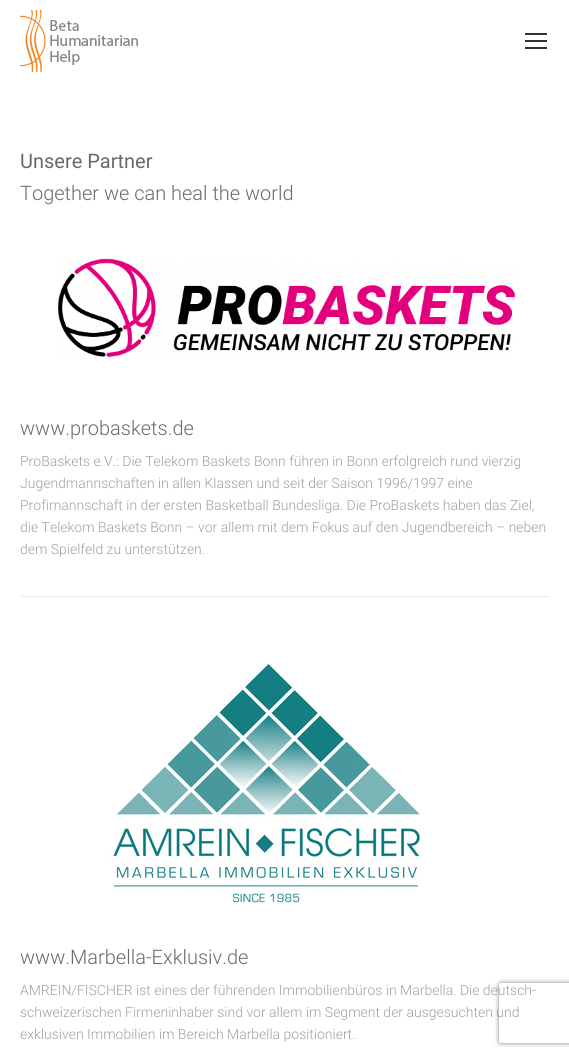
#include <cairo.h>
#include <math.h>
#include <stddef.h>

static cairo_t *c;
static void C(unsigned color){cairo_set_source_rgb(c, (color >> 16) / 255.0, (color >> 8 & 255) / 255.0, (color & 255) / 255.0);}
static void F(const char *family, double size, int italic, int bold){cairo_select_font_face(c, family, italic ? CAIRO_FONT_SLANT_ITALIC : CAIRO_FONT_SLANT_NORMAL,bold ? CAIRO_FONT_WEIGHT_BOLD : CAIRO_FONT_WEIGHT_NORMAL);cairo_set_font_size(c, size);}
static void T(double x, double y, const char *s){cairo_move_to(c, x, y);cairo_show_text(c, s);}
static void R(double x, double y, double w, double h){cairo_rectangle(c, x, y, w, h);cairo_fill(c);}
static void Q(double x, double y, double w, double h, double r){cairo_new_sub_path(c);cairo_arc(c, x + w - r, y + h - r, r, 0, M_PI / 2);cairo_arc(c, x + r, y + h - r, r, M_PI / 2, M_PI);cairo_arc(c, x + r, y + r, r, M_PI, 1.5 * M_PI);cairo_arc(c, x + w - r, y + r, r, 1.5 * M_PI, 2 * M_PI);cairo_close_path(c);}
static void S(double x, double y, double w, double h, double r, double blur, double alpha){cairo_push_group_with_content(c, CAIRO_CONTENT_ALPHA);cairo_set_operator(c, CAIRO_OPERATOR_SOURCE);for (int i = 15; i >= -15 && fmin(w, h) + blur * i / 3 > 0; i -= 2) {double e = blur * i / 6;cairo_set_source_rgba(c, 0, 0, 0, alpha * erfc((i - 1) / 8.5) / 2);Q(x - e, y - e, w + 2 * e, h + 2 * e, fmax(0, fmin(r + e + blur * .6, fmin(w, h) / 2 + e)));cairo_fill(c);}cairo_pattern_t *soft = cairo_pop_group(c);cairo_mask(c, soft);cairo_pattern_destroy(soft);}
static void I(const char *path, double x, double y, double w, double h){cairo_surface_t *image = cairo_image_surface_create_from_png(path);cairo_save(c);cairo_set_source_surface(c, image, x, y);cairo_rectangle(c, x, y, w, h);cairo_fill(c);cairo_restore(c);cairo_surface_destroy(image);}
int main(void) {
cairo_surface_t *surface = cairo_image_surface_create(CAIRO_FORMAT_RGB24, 569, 1057);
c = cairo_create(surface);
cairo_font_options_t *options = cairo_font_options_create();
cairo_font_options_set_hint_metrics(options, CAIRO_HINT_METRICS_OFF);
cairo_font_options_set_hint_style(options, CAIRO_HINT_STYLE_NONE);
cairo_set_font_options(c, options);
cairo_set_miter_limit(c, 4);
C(0xffffff);
cairo_paint(c);
I("1.png",20,10,118,62);
C(0x333333);
R(525,33,22,2);
R(525,40,22,2);
R(525,47,22,2);
F("Roboto",20,0,0);
C(0x696969);
T(20,168,"Unsere Partner");
F("Roboto Light",20,0,0);
T(20,200,"Together we can heal the world");
I("2.png",58,258,458,99);
T(20,435,"www.probaskets.de");
F("Roboto Light",14,0,0);
C(0x9f9f9f);
T(20,466,"ProBaskets e.V.: Die Telekom Baskets Bonn führen in Bonn erfolgreich rund vierzig");
T(20,488,"Jugendmannschaften in allen Klassen und seit der Saison 1996/1997 eine");
T(20,510,"Profimannschaft in der ersten Basketball Bundesliga. Die ProBaskets haben das Ziel,");
T(20,532,"die Telekom Baskets Bonn – vor allem mit dem Fokus auf den Jugendbereich – neben");
T(20,554,"dem Spielfeld zu unterstützen.");
C(0xebebeb);
R(20,596,529,1);
I("3.png",108,663,312,240);
F("Roboto Light",20,0,0);
C(0x696969);
T(20,964,"www.Marbella-Exklusiv.de");
F("Roboto Light",14,0,0);
C(0x9f9f9f);
T(20,995,"AMREIN/FISCHER ist eines der führenden Immobilienbüros in Marbella. Die deutsch-");
T(20,1017,"schweizerischen Firmeninhaber sind vor allem im Segment der ausgesuchten und");
T(20,1039,"exklusiven Immobilien im Bereich Marbella positioniert.");
cairo_save(c);
cairo_set_fill_rule(c,CAIRO_FILL_RULE_EVEN_ODD);
cairo_new_path(c);
cairo_move_to(c,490,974);
cairo_line_to(c,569,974);
cairo_line_to(c,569,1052);
cairo_line_to(c,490,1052);
cairo_close_path(c);
cairo_move_to(c,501,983);
cairo_line_to(c,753,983);
cairo_curve_to(c,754,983,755,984,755,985);
cairo_line_to(c,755,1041);
cairo_curve_to(c,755,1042,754,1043,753,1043);
cairo_line_to(c,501,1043);
cairo_curve_to(c,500,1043,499,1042,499,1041);
cairo_line_to(c,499,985);
cairo_curve_to(c,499,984,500,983,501,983);
cairo_close_path(c);
cairo_clip(c);
C(0x808080);
S(499,983,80,60,2,2.5,1);
cairo_restore(c);
cairo_surface_write_to_png(surface, "o.png");
cairo_font_options_destroy(options);
cairo_destroy(c);
cairo_surface_destroy(surface);
return 0;
}
